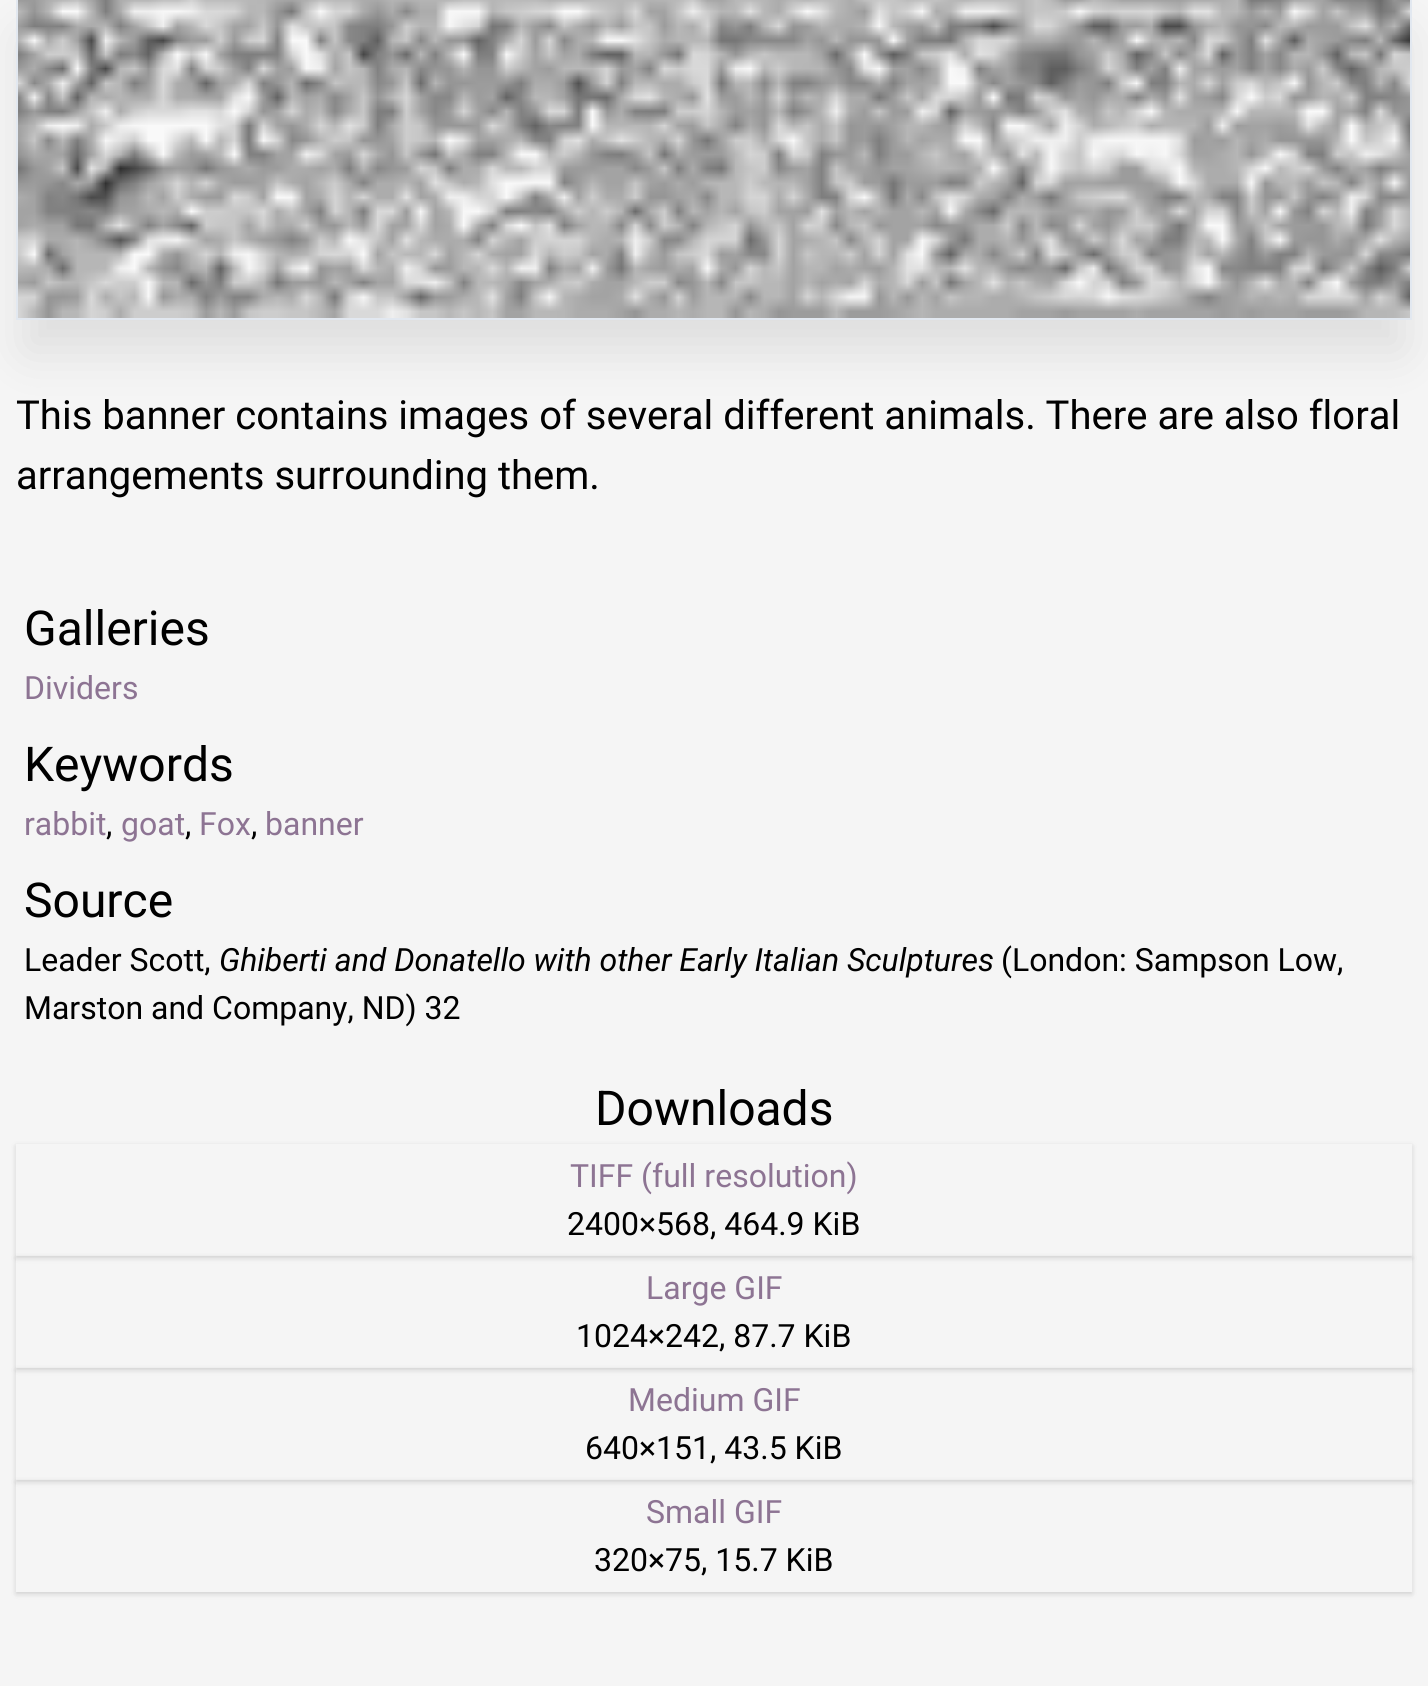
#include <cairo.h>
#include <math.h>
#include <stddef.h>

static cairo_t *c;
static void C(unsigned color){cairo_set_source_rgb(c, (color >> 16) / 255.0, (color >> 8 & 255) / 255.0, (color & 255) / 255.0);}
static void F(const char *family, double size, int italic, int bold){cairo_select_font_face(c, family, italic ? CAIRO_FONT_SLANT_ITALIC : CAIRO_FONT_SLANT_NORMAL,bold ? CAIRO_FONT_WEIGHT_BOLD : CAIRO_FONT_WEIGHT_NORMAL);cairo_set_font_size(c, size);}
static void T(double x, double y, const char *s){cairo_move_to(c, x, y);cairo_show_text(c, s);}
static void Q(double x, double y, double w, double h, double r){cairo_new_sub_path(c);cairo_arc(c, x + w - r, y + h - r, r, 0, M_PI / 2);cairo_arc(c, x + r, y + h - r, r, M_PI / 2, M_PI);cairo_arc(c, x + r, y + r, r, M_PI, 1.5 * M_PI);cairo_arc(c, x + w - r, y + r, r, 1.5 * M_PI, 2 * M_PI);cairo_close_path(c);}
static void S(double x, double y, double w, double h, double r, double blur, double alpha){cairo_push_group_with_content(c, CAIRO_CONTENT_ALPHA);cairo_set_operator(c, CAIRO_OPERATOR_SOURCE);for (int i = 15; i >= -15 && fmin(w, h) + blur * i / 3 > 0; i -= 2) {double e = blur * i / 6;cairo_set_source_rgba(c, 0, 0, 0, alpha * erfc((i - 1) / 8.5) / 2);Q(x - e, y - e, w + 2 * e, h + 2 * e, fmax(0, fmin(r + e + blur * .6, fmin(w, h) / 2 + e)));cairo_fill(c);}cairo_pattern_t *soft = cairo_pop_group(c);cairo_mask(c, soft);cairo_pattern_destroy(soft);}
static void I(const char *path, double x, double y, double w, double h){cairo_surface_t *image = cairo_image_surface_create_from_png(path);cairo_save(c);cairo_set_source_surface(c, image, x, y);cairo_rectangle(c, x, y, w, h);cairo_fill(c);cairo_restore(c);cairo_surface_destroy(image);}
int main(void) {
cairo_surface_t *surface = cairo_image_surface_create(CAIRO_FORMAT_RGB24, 1428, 1686);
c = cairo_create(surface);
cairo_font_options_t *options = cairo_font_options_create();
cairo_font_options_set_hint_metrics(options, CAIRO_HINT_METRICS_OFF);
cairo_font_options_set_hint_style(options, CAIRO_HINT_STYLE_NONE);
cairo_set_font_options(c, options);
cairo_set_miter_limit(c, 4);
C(0xf5f5f5);
cairo_paint(c);
C(0x000000);
S(26,38,1376,312,0,25,.1);
cairo_rectangle(c,17,-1,1394,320);
C(0xe2e8f0);
cairo_stroke(c);
I("1.png",18,0,1392,318);
F("Roboto",40,0,0);
C(0x000000);
T(16,429,"This banner contains images of several different animals. There are also floral");
T(16,489,"arrangements surrounding them.");
F("Roboto",48,0,0);
T(24,645,"Galleries");
F("Roboto",32,0,0);
C(0x8d7493);
T(24,699,"Dividers");
F("Roboto",48,0,0);
C(0x000000);
T(24,781,"Keywords");
F("Roboto",32,0,0);
C(0x8d7493);
T(24,835,"rabbit");
C(0x000000);
T(106,835,",");
C(0x8d7493);
T(121,835,"goat");
C(0x000000);
T(185,835,",");
C(0x8d7493);
T(199,835,"Fox");
C(0x000000);
T(251,835,",");
C(0x8d7493);
T(265,835,"banner");
F("Roboto",48,0,0);
C(0x000000);
T(24,917,"Source");
F("Roboto",32,0,0);
T(24,971,"Leader Scott,");
F("Roboto",32,1,0);
T(219,971,"Ghiberti and Donatello with other Early Italian Sculptures");
F("Roboto",32,0,0);
T(1001,971,"(London: Sampson Low,");
T(24,1019,"Marston and Company, ND) 32");
F("Roboto",48,0,0);
T(595,1125,"Downloads");
cairo_save(c);
cairo_set_fill_rule(c,CAIRO_FILL_RULE_EVEN_ODD);
cairo_new_path(c);
cairo_move_to(c,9,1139);
cairo_line_to(c,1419,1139);
cairo_line_to(c,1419,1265);
cairo_line_to(c,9,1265);
cairo_close_path(c);
cairo_move_to(c,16,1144);
cairo_line_to(c,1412,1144);
cairo_line_to(c,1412,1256);
cairo_line_to(c,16,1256);
cairo_close_path(c);
cairo_clip(c);
C(0x000000);
S(16,1146,1396,112,0,2,.06);
cairo_restore(c);
cairo_save(c);
cairo_set_fill_rule(c,CAIRO_FILL_RULE_EVEN_ODD);
cairo_new_path(c);
cairo_move_to(c,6,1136);
cairo_line_to(c,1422,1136);
cairo_line_to(c,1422,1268);
cairo_line_to(c,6,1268);
cairo_close_path(c);
cairo_move_to(c,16,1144);
cairo_line_to(c,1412,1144);
cairo_line_to(c,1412,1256);
cairo_line_to(c,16,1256);
cairo_close_path(c);
cairo_clip(c);
C(0x000000);
S(16,1146,1396,112,0,3,.1);
cairo_restore(c);
F("Roboto",32,0,0);
C(0x8d7493);
T(570,1187,"TIFF (full resolution)");
C(0x000000);
T(567,1235,"2400×568, 464.9 KiB");
cairo_save(c);
cairo_set_fill_rule(c,CAIRO_FILL_RULE_EVEN_ODD);
cairo_new_path(c);
cairo_move_to(c,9,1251);
cairo_line_to(c,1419,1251);
cairo_line_to(c,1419,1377);
cairo_line_to(c,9,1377);
cairo_close_path(c);
cairo_move_to(c,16,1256);
cairo_line_to(c,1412,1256);
cairo_line_to(c,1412,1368);
cairo_line_to(c,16,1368);
cairo_close_path(c);
cairo_clip(c);
C(0x000000);
S(16,1258,1396,112,0,2,.06);
cairo_restore(c);
cairo_save(c);
cairo_set_fill_rule(c,CAIRO_FILL_RULE_EVEN_ODD);
cairo_new_path(c);
cairo_move_to(c,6,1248);
cairo_line_to(c,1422,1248);
cairo_line_to(c,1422,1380);
cairo_line_to(c,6,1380);
cairo_close_path(c);
cairo_move_to(c,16,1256);
cairo_line_to(c,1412,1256);
cairo_line_to(c,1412,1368);
cairo_line_to(c,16,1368);
cairo_close_path(c);
cairo_clip(c);
C(0x000000);
S(16,1258,1396,112,0,3,.1);
cairo_restore(c);
C(0x8d7493);
T(646,1299,"Large GIF");
C(0x000000);
T(576,1347,"1024×242, 87.7 KiB");
cairo_save(c);
cairo_set_fill_rule(c,CAIRO_FILL_RULE_EVEN_ODD);
cairo_new_path(c);
cairo_move_to(c,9,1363);
cairo_line_to(c,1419,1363);
cairo_line_to(c,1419,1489);
cairo_line_to(c,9,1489);
cairo_close_path(c);
cairo_move_to(c,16,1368);
cairo_line_to(c,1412,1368);
cairo_line_to(c,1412,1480);
cairo_line_to(c,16,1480);
cairo_close_path(c);
cairo_clip(c);
C(0x000000);
S(16,1370,1396,112,0,2,.06);
cairo_restore(c);
cairo_save(c);
cairo_set_fill_rule(c,CAIRO_FILL_RULE_EVEN_ODD);
cairo_new_path(c);
cairo_move_to(c,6,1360);
cairo_line_to(c,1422,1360);
cairo_line_to(c,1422,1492);
cairo_line_to(c,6,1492);
cairo_close_path(c);
cairo_move_to(c,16,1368);
cairo_line_to(c,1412,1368);
cairo_line_to(c,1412,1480);
cairo_line_to(c,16,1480);
cairo_close_path(c);
cairo_clip(c);
C(0x000000);
S(16,1370,1396,112,0,3,.1);
cairo_restore(c);
C(0x8d7493);
T(628,1411,"Medium GIF");
C(0x000000);
T(585,1459,"640×151, 43.5 KiB");
cairo_save(c);
cairo_set_fill_rule(c,CAIRO_FILL_RULE_EVEN_ODD);
cairo_new_path(c);
cairo_move_to(c,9,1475);
cairo_line_to(c,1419,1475);
cairo_line_to(c,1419,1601);
cairo_line_to(c,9,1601);
cairo_close_path(c);
cairo_move_to(c,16,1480);
cairo_line_to(c,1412,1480);
cairo_line_to(c,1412,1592);
cairo_line_to(c,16,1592);
cairo_close_path(c);
cairo_clip(c);
C(0x000000);
S(16,1482,1396,112,0,2,.06);
cairo_restore(c);
cairo_save(c);
cairo_set_fill_rule(c,CAIRO_FILL_RULE_EVEN_ODD);
cairo_new_path(c);
cairo_move_to(c,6,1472);
cairo_line_to(c,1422,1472);
cairo_line_to(c,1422,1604);
cairo_line_to(c,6,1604);
cairo_close_path(c);
cairo_move_to(c,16,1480);
cairo_line_to(c,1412,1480);
cairo_line_to(c,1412,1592);
cairo_line_to(c,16,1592);
cairo_close_path(c);
cairo_clip(c);
C(0x000000);
S(16,1482,1396,112,0,3,.1);
cairo_restore(c);
C(0x8d7493);
T(646,1523,"Small GIF");
C(0x000000);
T(594,1571,"320×75, 15.7 KiB");
cairo_surface_write_to_png(surface, "o.png");
cairo_font_options_destroy(options);
cairo_destroy(c);
cairo_surface_destroy(surface);
return 0;
}
